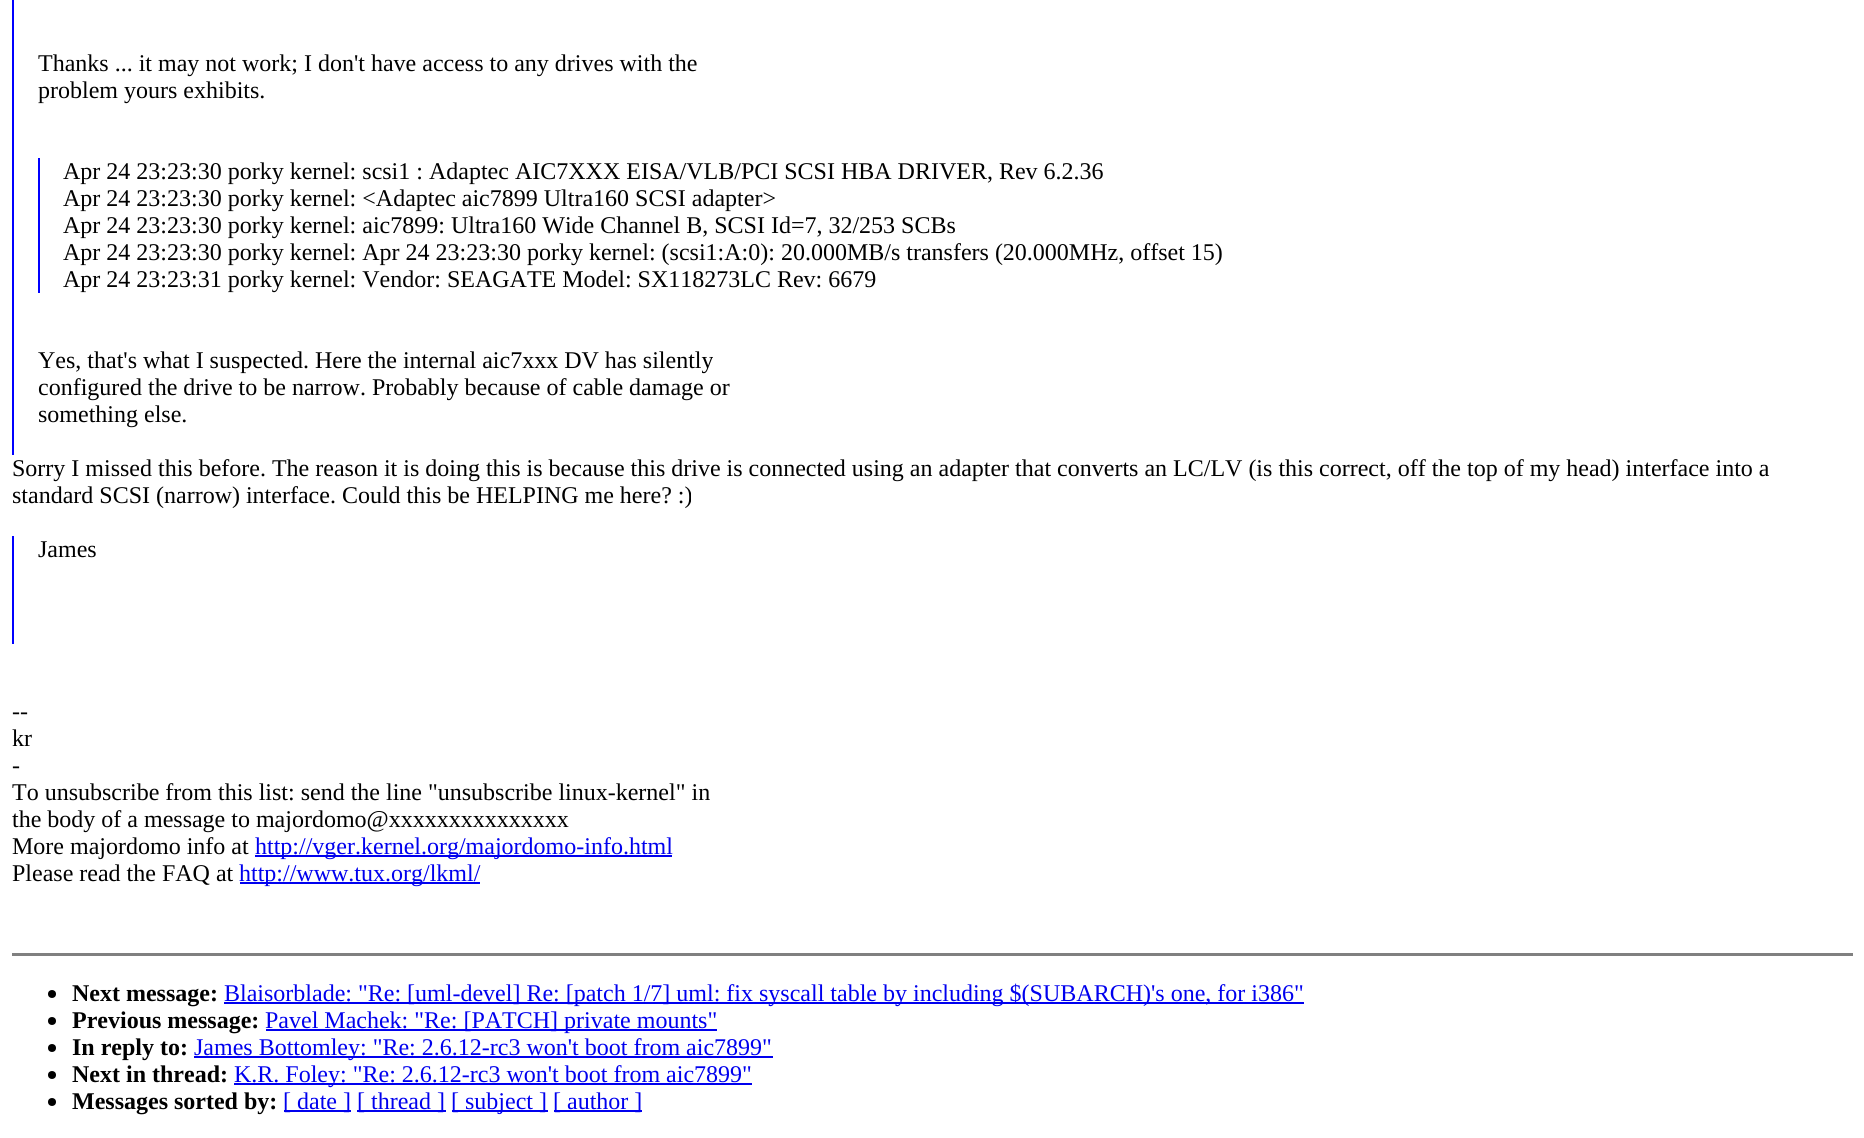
#include <cairo.h>
#include <math.h>
#include <stddef.h>

static cairo_t *c;
static void C(unsigned color){cairo_set_source_rgb(c, (color >> 16) / 255.0, (color >> 8 & 255) / 255.0, (color & 255) / 255.0);}
static void F(const char *family, double size, int italic, int bold){cairo_select_font_face(c, family, italic ? CAIRO_FONT_SLANT_ITALIC : CAIRO_FONT_SLANT_NORMAL,bold ? CAIRO_FONT_WEIGHT_BOLD : CAIRO_FONT_WEIGHT_NORMAL);cairo_set_font_size(c, size);}
static void T(double x, double y, const char *s){cairo_move_to(c, x, y);cairo_show_text(c, s);}
static void R(double x, double y, double w, double h){cairo_rectangle(c, x, y, w, h);cairo_fill(c);}
int main(void) {
cairo_surface_t *surface = cairo_image_surface_create(CAIRO_FORMAT_RGB24, 1864, 1138);
c = cairo_create(surface);
cairo_font_options_t *options = cairo_font_options_create();
cairo_font_options_set_hint_metrics(options, CAIRO_HINT_METRICS_OFF);
cairo_font_options_set_hint_style(options, CAIRO_HINT_STYLE_NONE);
cairo_set_font_options(c, options);
cairo_set_miter_limit(c, 4);
C(0xffffff);
cairo_paint(c);
C(0x0000ff);
R(12,0,2,455);
F("Liberation Serif",24,0,0);
C(0x000000);
T(38,71,"Thanks ... it may not work; I don't have access to any drives with the");
T(38,98,"problem yours exhibits.");
C(0x0000ff);
R(38,158,2,135);
C(0x000000);
T(63,179,"Apr 24 23:23:30 porky kernel: scsi1 : Adaptec AIC7XXX EISA/VLB/PCI SCSI HBA DRIVER, Rev 6.2.36");
T(63,206,"Apr 24 23:23:30 porky kernel: <Adaptec aic7899 Ultra160 SCSI adapter>");
T(63,233,"Apr 24 23:23:30 porky kernel: aic7899: Ultra160 Wide Channel B, SCSI Id=7, 32/253 SCBs");
T(63,260,"Apr 24 23:23:30 porky kernel: Apr 24 23:23:30 porky kernel: (scsi1:A:0): 20.000MB/s transfers (20.000MHz, offset 15)");
T(63,287,"Apr 24 23:23:31 porky kernel: Vendor: SEAGATE Model: SX118273LC Rev: 6679");
T(38,368,"Yes, that's what I suspected. Here the internal aic7xxx DV has silently");
T(38,395,"configured the drive to be narrow. Probably because of cable damage or");
T(38,422,"something else.");
T(12,476,"Sorry I missed this before. The reason it is doing this is because this drive is connected using an adapter that converts an LC/LV (is this correct, off the top of my head) interface into a");
T(12,503,"standard SCSI (narrow) interface. Could this be HELPING me here? :)");
C(0x0000ff);
R(12,536,2,108);
C(0x000000);
T(38,557,"James");
T(12,719,"--");
T(12,746,"kr");
T(12,773,"-");
T(12,800,"To unsubscribe from this list: send the line \"unsubscribe linux-kernel\" in");
T(12,827,"the body of a message to majordomo@xxxxxxxxxxxxxxx");
T(12,854,"More majordomo info at");
C(0x0000ee);
R(255,855,417,2);
T(255,854,"http://vger.kernel.org/majordomo-info.html");
C(0x000000);
T(12,881,"Please read the FAQ at");
C(0x0000ee);
R(240,882,240,2);
T(239,881,"http://www.tux.org/lkml/");
C(0x808080);
R(12,953,1841,3);
C(0x000000);
cairo_new_path(c);
cairo_arc(c,52,994,4,0,2 * M_PI);
cairo_fill(c);
F("Liberation Serif",24,0,1);
T(72,1001,"Next message:");
C(0x0000ee);
R(224,1002,1080,2);
F("Liberation Serif",24,0,0);
T(224,1001,"Blaisorblade: \"Re: [uml-devel] Re: [patch 1/7] uml: fix syscall table by including $(SUBARCH)'s one, for i386\"");
C(0x000000);
cairo_new_path(c);
cairo_arc(c,52,1021,4,0,2 * M_PI);
cairo_fill(c);
F("Liberation Serif",24,0,1);
T(72,1028,"Previous message:");
C(0x0000ee);
R(266,1029,451,2);
F("Liberation Serif",24,0,0);
T(265,1028,"Pavel Machek: \"Re: [PATCH] private mounts\"");
C(0x000000);
cairo_new_path(c);
cairo_arc(c,52,1048,4,0,2 * M_PI);
cairo_fill(c);
F("Liberation Serif",24,0,1);
T(72,1055,"In reply to:");
C(0x0000ee);
R(194,1056,579,2);
F("Liberation Serif",24,0,0);
T(194,1055,"James Bottomley: \"Re: 2.6.12-rc3 won't boot from aic7899\"");
C(0x000000);
cairo_new_path(c);
cairo_arc(c,52,1075,4,0,2 * M_PI);
cairo_fill(c);
F("Liberation Serif",24,0,1);
T(72,1082,"Next in thread:");
C(0x0000ee);
R(234,1083,518,2);
F("Liberation Serif",24,0,0);
T(234,1082,"K.R. Foley: \"Re: 2.6.12-rc3 won't boot from aic7899\"");
C(0x000000);
cairo_new_path(c);
cairo_arc(c,52,1102,4,0,2 * M_PI);
cairo_fill(c);
F("Liberation Serif",24,0,1);
T(72,1109,"Messages sorted by:");
C(0x0000ee);
R(284,1110,67,2);
F("Liberation Serif",24,0,0);
T(283,1109,"[ date ]");
R(357,1110,89,2);
T(357,1109,"[ thread ]");
R(452,1110,96,2);
T(451,1109,"[ subject ]");
R(554,1110,88,2);
T(553,1109,"[ author ]");
cairo_surface_write_to_png(surface, "o.png");
cairo_font_options_destroy(options);
cairo_destroy(c);
cairo_surface_destroy(surface);
return 0;
}
